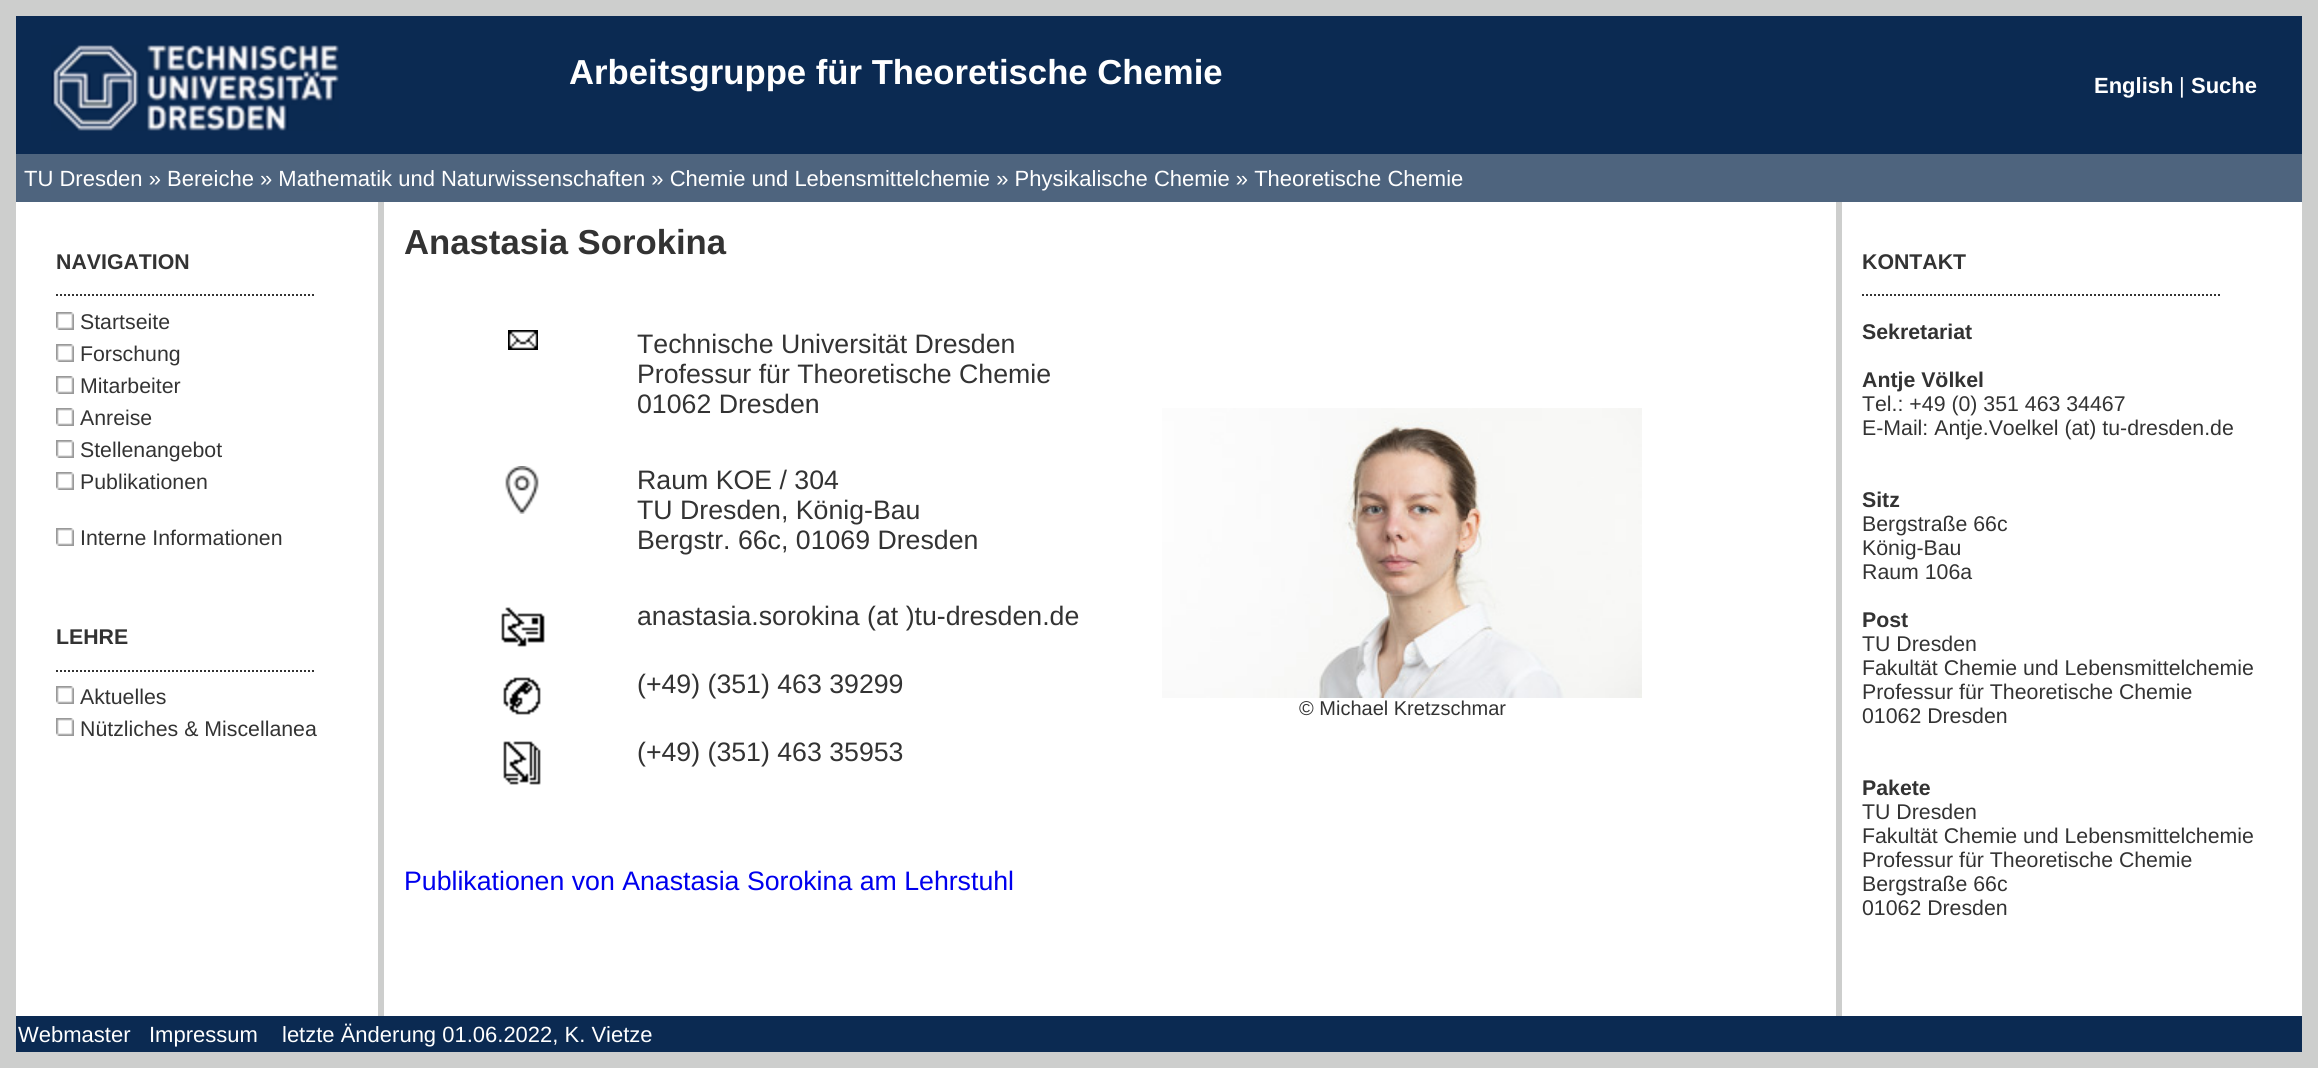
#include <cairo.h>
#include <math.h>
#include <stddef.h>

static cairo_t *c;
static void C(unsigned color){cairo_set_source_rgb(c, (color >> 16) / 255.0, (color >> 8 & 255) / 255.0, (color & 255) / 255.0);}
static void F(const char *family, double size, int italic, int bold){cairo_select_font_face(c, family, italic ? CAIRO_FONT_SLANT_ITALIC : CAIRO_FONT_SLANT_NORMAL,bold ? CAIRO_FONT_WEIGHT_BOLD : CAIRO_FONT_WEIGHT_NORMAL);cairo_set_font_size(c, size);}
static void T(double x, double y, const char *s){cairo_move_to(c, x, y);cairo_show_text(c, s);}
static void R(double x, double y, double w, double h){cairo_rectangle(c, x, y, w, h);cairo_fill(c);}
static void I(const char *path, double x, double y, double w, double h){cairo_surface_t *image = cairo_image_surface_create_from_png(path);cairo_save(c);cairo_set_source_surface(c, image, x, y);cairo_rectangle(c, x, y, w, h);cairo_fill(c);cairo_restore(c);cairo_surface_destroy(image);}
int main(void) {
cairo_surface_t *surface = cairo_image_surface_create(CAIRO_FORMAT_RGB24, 2318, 1068);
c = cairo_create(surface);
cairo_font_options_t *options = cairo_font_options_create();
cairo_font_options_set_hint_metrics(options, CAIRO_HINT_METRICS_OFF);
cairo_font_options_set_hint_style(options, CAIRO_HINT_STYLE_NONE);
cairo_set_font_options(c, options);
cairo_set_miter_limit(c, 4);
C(0xcdcecd);
cairo_paint(c);
C(0x0b2a52);
R(16,16,2286,138);
I("1.png",51,45,288,86);
F("Liberation Sans",34.7,0,1);
C(0xffffff);
T(569,84,"Arbeitsgruppe für Theoretische Chemie");
F("Liberation Sans",22,0,1);
T(2094,93,"English");
F("Liberation Sans",22,0,0);
T(2179,93,"|");
F("Liberation Sans",22,0,1);
T(2191,93,"Suche");
C(0x4e647e);
R(16,154,2286,48);
F("Liberation Sans",22,0,0);
C(0xffffff);
T(24,186,"TU Dresden » Bereiche » Mathematik und Naturwissenschaften » Chemie und Lebensmittelchemie » Physikalische Chemie » Theoretische Chemie");
R(16,202,362,814);
F("Liberation Sans",21.3,0,1);
C(0x333333);
T(56,269,"NAVIGATION");
cairo_new_path(c);
cairo_move_to(c,56,295);
cairo_line_to(c,316,295);
cairo_set_dash(c,(double[]){2,2},2,0);
cairo_stroke(c);
I("2.png",56,312,18,18);
F("Liberation Sans",21.3,0,0);
T(80,329,"Startseite");
I("2.png",56,344,18,18);
T(80,361,"Forschung");
I("2.png",56,376,18,18);
T(80,393,"Mitarbeiter");
I("2.png",56,408,18,18);
T(80,425,"Anreise");
I("2.png",56,440,18,18);
T(80,457,"Stellenangebot");
I("2.png",56,472,18,18);
T(80,489,"Publikationen");
I("2.png",56,528,18,18);
T(80,545,"Interne Informationen");
F("Liberation Sans",21.3,0,1);
T(56,644,"LEHRE");
cairo_new_path(c);
cairo_move_to(c,56,671);
cairo_line_to(c,316,671);
cairo_stroke(c);
I("2.png",56,686,18,18);
F("Liberation Sans",21.3,0,0);
T(80,704,"Aktuelles");
I("2.png",56,718,18,18);
T(80,736,"Nützliches & Miscellanea");
C(0xffffff);
R(384,202,1452,814);
F("Liberation Sans",34.7,0,1);
C(0x333333);
T(404,254,"Anastasia Sorokina");
I("3.png",508,330,30,20);
F("Liberation Sans",26.7,0,0);
T(637,353,"Technische Universität Dresden");
T(637,383,"Professur für Theoretische Chemie");
T(637,413,"01062 Dresden");
I("4.png",505,466,34,48);
T(637,489,"Raum KOE / 304");
T(637,519,"TU Dresden, König-Bau");
T(637,549,"Bergstr. 66c, 01069 Dresden");
I("5.png",501,607,44,40);
T(637,625,"anastasia.sorokina (at )tu-dresden.de");
I("6.png",503,677,38,38);
T(637,693,"(+49) (351) 463 39299");
I("7.png",503,741,38,44);
T(637,761,"(+49) (351) 463 35953");
I("8.png",1162,408,480,290);
F("Liberation Sans",20,0,0);
T(1299,715,"© Michael Kretzschmar");
F("Liberation Sans",26.7,0,0);
C(0x0000ee);
T(404,890,"Publikationen von Anastasia Sorokina am Lehrstuhl");
C(0xffffff);
R(1842,202,460,814);
F("Liberation Sans",21.3,0,1);
C(0x333333);
T(1862,269,"KONTAKT");
cairo_new_path(c);
cairo_move_to(c,1862,295);
cairo_line_to(c,2222,295);
cairo_stroke(c);
T(1862,339,"Sekretariat");
T(1862,387,"Antje Völkel");
F("Liberation Sans",21.3,0,0);
T(1862,411,"Tel.: +49 (0) 351 463 34467");
T(1862,435,"E-Mail: Antje.Voelkel (at) tu-dresden.de");
F("Liberation Sans",21.3,0,1);
T(1862,507,"Sitz");
F("Liberation Sans",21.3,0,0);
T(1862,531,"Bergstraße 66c");
T(1862,555,"König-Bau");
T(1862,579,"Raum 106a");
F("Liberation Sans",21.3,0,1);
T(1862,627,"Post");
F("Liberation Sans",21.3,0,0);
T(1862,651,"TU Dresden");
T(1862,675,"Fakultät Chemie und Lebensmittelchemie");
T(1862,699,"Professur für Theoretische Chemie");
T(1862,723,"01062 Dresden");
F("Liberation Sans",21.3,0,1);
T(1862,795,"Pakete");
F("Liberation Sans",21.3,0,0);
T(1862,819,"TU Dresden");
T(1862,843,"Fakultät Chemie und Lebensmittelchemie");
T(1862,867,"Professur für Theoretische Chemie");
T(1862,891,"Bergstraße 66c");
T(1862,915,"01062 Dresden");
C(0x0b2a52);
R(16,1016,2286,36);
F("Liberation Sans",22,0,0);
C(0xffffff);
T(18,1042,"Webmaster");
T(149,1042,"Impressum");
T(282,1042,"letzte Änderung 01.06.2022, K. Vietze");
cairo_surface_write_to_png(surface, "o.png");
cairo_font_options_destroy(options);
cairo_destroy(c);
cairo_surface_destroy(surface);
return 0;
}
